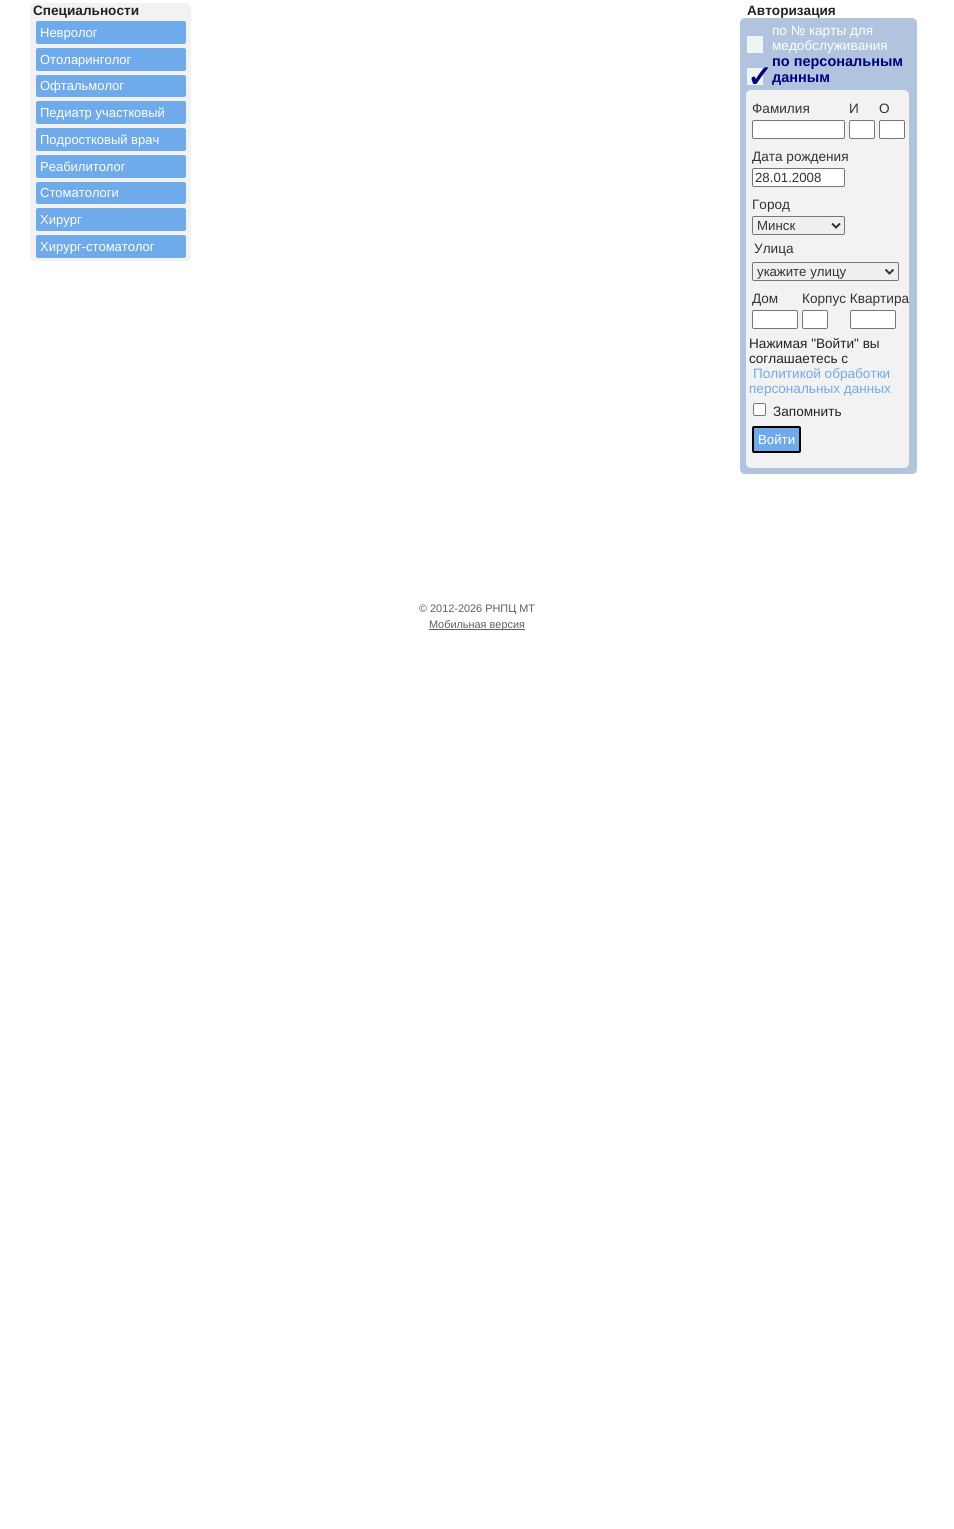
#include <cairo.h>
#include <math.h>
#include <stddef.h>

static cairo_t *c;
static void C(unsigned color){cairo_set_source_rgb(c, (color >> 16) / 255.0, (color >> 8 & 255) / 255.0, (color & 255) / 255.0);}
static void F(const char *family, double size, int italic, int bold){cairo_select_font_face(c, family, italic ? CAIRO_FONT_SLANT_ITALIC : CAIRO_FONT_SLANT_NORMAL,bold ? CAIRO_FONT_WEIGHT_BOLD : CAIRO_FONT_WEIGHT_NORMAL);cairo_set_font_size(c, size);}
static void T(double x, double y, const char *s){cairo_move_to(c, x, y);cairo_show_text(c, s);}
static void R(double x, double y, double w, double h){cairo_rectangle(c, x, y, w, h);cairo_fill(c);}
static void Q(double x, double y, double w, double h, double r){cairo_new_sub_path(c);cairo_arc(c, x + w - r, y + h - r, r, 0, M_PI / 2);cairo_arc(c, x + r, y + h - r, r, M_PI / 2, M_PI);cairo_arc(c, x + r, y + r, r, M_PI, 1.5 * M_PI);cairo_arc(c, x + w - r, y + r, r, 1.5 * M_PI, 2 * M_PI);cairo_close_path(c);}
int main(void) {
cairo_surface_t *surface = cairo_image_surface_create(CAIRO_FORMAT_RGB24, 954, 1529);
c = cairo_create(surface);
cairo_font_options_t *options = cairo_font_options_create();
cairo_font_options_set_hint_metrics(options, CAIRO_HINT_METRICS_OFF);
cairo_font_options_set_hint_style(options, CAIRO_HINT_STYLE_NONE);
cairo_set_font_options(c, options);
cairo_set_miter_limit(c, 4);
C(0xffffff);
cairo_paint(c);
C(0xf2f2f2);
Q(30,3,161,258,5);
cairo_fill(c);
F("Liberation Sans",13.6,0,1);
C(0x232323);
T(33,15,"Специальности");
C(0x6faaea);
Q(36,21,150,23,2);
cairo_fill(c);
F("Liberation Sans",13,0,0);
C(0xffffff);
T(40,37,"Невролог");
C(0x6faaea);
Q(36,48,150,23,2);
cairo_fill(c);
C(0xffffff);
T(40,64,"Отоларинголог");
C(0x6faaea);
Q(36,75,150,22,2);
cairo_fill(c);
C(0xffffff);
T(40,90,"Офтальмолог");
C(0x6faaea);
Q(36,101,150,23,2);
cairo_fill(c);
C(0xffffff);
T(40,117,"Педиатр участковый");
C(0x6faaea);
Q(36,128,150,23,2);
cairo_fill(c);
C(0xffffff);
T(40,144,"Подростковый врач");
C(0x6faaea);
Q(36,155,150,23,2);
cairo_fill(c);
C(0xffffff);
T(40,171,"Реабилитолог");
C(0x6faaea);
Q(36,182,150,22,2);
cairo_fill(c);
C(0xffffff);
T(40,197,"Стоматологи");
C(0x6faaea);
Q(36,208,150,23,2);
cairo_fill(c);
C(0xffffff);
T(40,224,"Хирург");
C(0x6faaea);
Q(36,235,150,23,2);
cairo_fill(c);
C(0xffffff);
T(40,251,"Хирург-стоматолог");
F("Liberation Sans",13.6,0,1);
C(0x232323);
T(747,15,"Авторизация");
C(0xb0c4de);
Q(740,18,177,456,5);
cairo_fill(c);
F("Liberation Sans",13.6,0,0);
C(0xffffff);
T(772,35,"по № карты для");
C(0xeff3f8);
R(747,52,16,1);
C(0xf2f2f2);
R(747,36,16,16);
C(0xffffff);
T(772,50,"медобслуживания");
F("Liberation Sans",14.5,0,1);
C(0x000080);
T(772,66,"по персональным");
C(0xeff3f8);
R(747,84,16,1);
C(0xf2f2f2);
R(747,68,16,16);
F("DejaVu Sans",30,0,1);
C(0x000080);
T(747,87,"✓");
F("Liberation Sans",14.5,0,1);
T(772,82,"данным");
C(0xf2f2f2);
Q(746,90,163,378,5);
cairo_fill(c);
F("Liberation Sans",13.6,0,0);
C(0x333333);
T(752,113,"Фамилия");
T(849,113,"И");
T(879,113,"О");
C(0xffffff);
Q(752.5,120.5,92,18,1.5);
cairo_fill_preserve(c);
C(0x767676);
cairo_set_line_width(c,1);
cairo_stroke(c);
C(0xffffff);
Q(849.5,120.5,25,18,1.5);
cairo_fill_preserve(c);
C(0x767676);
cairo_stroke(c);
C(0xffffff);
Q(879.5,120.5,25,18,1.5);
cairo_fill_preserve(c);
C(0x767676);
cairo_stroke(c);
C(0x333333);
T(752,161,"Дата рождения");
C(0xffffff);
Q(752.5,168.5,92,18,1.5);
cairo_fill_preserve(c);
C(0x767676);
cairo_stroke(c);
F("Liberation Sans",13.25,0,0);
C(0x333333);
T(755,182,"28.01.2008");
F("Liberation Sans",13.6,0,0);
T(752,209,"Город");
C(0xefefef);
Q(752.5,216.5,92,18,1.5);
cairo_fill_preserve(c);
C(0x767676);
cairo_stroke(c);
cairo_new_path(c);
cairo_move_to(c,832,223.5);
cairo_line_to(c,836,227.5);
cairo_line_to(c,840,223.5);
C(0x333333);
cairo_set_line_width(c,2);
cairo_stroke(c);
F("Liberation Sans",13.25,0,0);
T(757,230,"Минск");
F("Liberation Sans",13.6,0,0);
T(754,253,"Улица");
C(0xefefef);
Q(752.5,262.5,146,18,1.5);
cairo_fill_preserve(c);
C(0x767676);
cairo_set_line_width(c,1);
cairo_stroke(c);
cairo_new_path(c);
cairo_move_to(c,885.5,269.5);
cairo_line_to(c,889.5,273.5);
cairo_line_to(c,893.5,269.5);
C(0x333333);
cairo_set_line_width(c,2);
cairo_stroke(c);
F("Liberation Sans",13.25,0,0);
T(757,276,"укажите улицу");
F("Liberation Sans",13.6,0,0);
T(752,303,"Дом");
T(802,303,"Корпус Квартира");
C(0xffffff);
Q(752.5,310.5,45,18,1.5);
cairo_fill_preserve(c);
C(0x767676);
cairo_set_line_width(c,1);
cairo_stroke(c);
C(0xffffff);
Q(802.5,310.5,25,18,1.5);
cairo_fill_preserve(c);
C(0x767676);
cairo_stroke(c);
C(0xffffff);
Q(850.5,310.5,45,18,1.5);
cairo_fill_preserve(c);
C(0x767676);
cairo_stroke(c);
C(0x232323);
T(749,348,"Нажимая \"Войти\" вы");
T(749,363,"соглашаетесь с");
C(0x6faaea);
T(753,378,"Политикой обработки");
T(749,393,"персональных данных");
C(0xffffff);
Q(753.5,403.5,12,12,1.5);
cairo_fill_preserve(c);
C(0x767676);
cairo_stroke(c);
C(0x232323);
T(773,416,"Запомнить");
C(0x6faaea);
Q(753,427,47,25,1);
cairo_fill_preserve(c);
C(0x000000);
cairo_set_line_width(c,2);
cairo_stroke(c);
F("Liberation Sans",13.25,0,0);
C(0xffffff);
T(758,444,"Войти");
F("Liberation Sans",10.9,0,0);
C(0x5e5e5e);
T(419,612,"© 2012-2026 РНПЦ МТ");
R(429,629,96,1);
T(429,628,"Мобильная версия");
cairo_surface_write_to_png(surface, "o.png");
cairo_font_options_destroy(options);
cairo_destroy(c);
cairo_surface_destroy(surface);
return 0;
}
